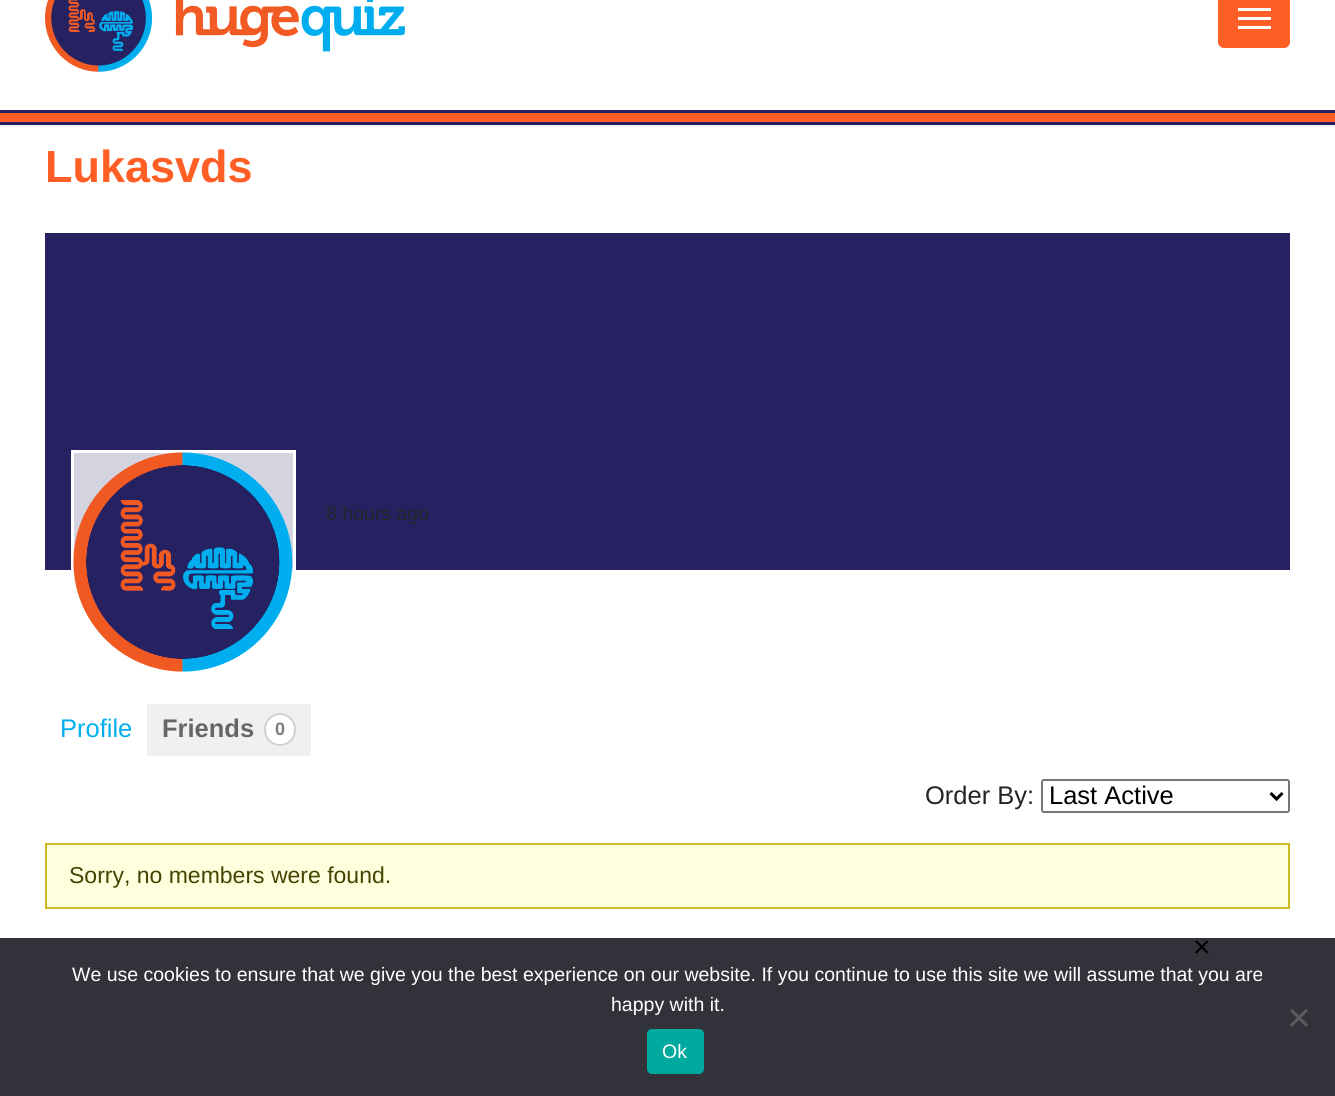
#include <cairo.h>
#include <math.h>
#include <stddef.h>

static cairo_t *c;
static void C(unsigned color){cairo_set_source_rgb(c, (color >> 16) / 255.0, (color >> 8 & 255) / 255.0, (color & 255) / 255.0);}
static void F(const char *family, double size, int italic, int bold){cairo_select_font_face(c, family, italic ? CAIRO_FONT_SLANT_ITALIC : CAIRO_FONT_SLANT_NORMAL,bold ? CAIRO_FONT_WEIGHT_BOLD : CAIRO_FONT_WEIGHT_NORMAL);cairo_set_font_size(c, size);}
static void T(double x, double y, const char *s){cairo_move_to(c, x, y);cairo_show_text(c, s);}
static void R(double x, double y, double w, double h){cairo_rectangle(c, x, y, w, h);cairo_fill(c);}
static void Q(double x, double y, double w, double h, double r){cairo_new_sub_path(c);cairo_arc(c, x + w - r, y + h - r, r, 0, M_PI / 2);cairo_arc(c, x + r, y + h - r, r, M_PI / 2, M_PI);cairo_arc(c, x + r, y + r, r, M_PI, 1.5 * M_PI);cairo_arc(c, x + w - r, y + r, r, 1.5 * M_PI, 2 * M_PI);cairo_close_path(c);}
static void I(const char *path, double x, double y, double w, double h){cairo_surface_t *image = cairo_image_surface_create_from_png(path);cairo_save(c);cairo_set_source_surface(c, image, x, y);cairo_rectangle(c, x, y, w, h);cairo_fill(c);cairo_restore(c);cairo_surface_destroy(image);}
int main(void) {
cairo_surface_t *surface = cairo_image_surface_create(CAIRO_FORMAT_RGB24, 1335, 1096);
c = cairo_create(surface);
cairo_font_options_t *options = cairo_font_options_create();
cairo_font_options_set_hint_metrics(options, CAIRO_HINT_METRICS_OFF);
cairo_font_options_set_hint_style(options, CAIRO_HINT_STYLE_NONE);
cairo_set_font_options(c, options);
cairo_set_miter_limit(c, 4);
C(0xffffff);
cairo_paint(c);
I("1.png",45,0,360,72);
C(0xff5e24);
Q(1218,-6,72,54,6);
cairo_fill(c);
C(0xffffff);
R(1238,8,33,3);
R(1238,17,33,3);
R(1238,26,33,3);
C(0xff5e24);
R(0,113,1335,9);
C(0x262262);
R(0,110,1335,3);
R(0,122,1335,3);
F("Liberation Sans",45,0,1);
C(0xff5e24);
T(45,182,"Lukasvds");
C(0x262262);
R(45,233,1245,337);
C(0xd4d3e0);
R(74,453,219,117);
cairo_rectangle(c,72.5,451.5,222,222);
C(0xffffff);
cairo_set_line_width(c,3);
cairo_stroke(c);
I("2.png",73,452,220,220);
F("Liberation Sans",19.5,0,0);
C(0x212529);
T(326,520,"8 hours ago");
F("Liberation Sans",25.5,0,0);
C(0x00aeef);
T(60,737,"Profile");
C(0xf0f0f0);
R(147,704,164,52);
F("Liberation Sans",25.5,0,1);
C(0x666666);
T(162,737,"Friends");
C(0xffffff);
Q(265,714,30,31,15);
cairo_fill_preserve(c);
C(0xd1d1d1);
cairo_set_line_width(c,2);
cairo_stroke(c);
F("Liberation Sans",18,0,1);
C(0x7b7b7b);
T(275,735,"0");
F("Liberation Sans",25.5,0,0);
C(0x212529);
T(925,804,"Order By:");
Q(1042,780,247,32,2);
C(0x767676);
cairo_stroke(c);
cairo_new_path(c);
cairo_move_to(c,1270.5,793);
cairo_line_to(c,1276.5,799);
cairo_line_to(c,1282.5,793);
C(0x000000);
cairo_set_line_width(c,3);
cairo_stroke(c);
T(1049,804,"Last Active");
C(0xffffdd);
cairo_rectangle(c,46,844,1243,64);
cairo_fill_preserve(c);
C(0xccbb22);
cairo_set_line_width(c,2);
cairo_stroke(c);
F("Liberation Sans",23,0,0);
C(0x444400);
T(69,883,"Sorry, no members were found.");
C(0x32323a);
R(0,938,1335,158);
F("Liberation Sans",30,0,0);
C(0x000000);
T(1193,957,"×");
F("Liberation Sans",19.5,0,0);
C(0xffffff);
T(72,981,"We use cookies to ensure that we give you the best experience on our website. If you continue to use this site we will assume that you are");
T(611,1011,"happy with it.");
C(0x59595d);
cairo_new_path(c);
cairo_move_to(c,1306,1008.5);
cairo_line_to(c,1308,1011);
cairo_line_to(c,1292,1027);
cairo_line_to(c,1290,1024.5);
cairo_close_path(c);
cairo_fill(c);
cairo_new_path(c);
cairo_move_to(c,1290,1011);
cairo_line_to(c,1292,1008.5);
cairo_line_to(c,1308,1024.5);
cairo_line_to(c,1306,1027);
cairo_close_path(c);
cairo_fill(c);
C(0x00a99d);
Q(647,1029,57,45,5);
cairo_fill(c);
C(0xffffff);
T(662,1058,"Ok");
cairo_surface_write_to_png(surface, "o.png");
cairo_font_options_destroy(options);
cairo_destroy(c);
cairo_surface_destroy(surface);
return 0;
}
